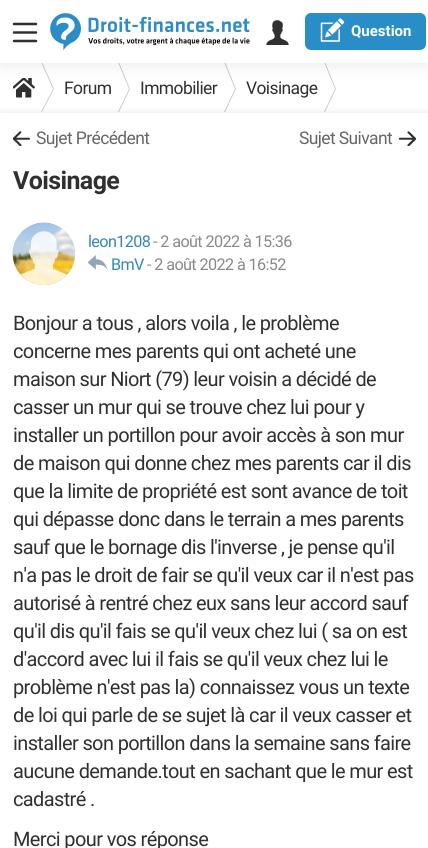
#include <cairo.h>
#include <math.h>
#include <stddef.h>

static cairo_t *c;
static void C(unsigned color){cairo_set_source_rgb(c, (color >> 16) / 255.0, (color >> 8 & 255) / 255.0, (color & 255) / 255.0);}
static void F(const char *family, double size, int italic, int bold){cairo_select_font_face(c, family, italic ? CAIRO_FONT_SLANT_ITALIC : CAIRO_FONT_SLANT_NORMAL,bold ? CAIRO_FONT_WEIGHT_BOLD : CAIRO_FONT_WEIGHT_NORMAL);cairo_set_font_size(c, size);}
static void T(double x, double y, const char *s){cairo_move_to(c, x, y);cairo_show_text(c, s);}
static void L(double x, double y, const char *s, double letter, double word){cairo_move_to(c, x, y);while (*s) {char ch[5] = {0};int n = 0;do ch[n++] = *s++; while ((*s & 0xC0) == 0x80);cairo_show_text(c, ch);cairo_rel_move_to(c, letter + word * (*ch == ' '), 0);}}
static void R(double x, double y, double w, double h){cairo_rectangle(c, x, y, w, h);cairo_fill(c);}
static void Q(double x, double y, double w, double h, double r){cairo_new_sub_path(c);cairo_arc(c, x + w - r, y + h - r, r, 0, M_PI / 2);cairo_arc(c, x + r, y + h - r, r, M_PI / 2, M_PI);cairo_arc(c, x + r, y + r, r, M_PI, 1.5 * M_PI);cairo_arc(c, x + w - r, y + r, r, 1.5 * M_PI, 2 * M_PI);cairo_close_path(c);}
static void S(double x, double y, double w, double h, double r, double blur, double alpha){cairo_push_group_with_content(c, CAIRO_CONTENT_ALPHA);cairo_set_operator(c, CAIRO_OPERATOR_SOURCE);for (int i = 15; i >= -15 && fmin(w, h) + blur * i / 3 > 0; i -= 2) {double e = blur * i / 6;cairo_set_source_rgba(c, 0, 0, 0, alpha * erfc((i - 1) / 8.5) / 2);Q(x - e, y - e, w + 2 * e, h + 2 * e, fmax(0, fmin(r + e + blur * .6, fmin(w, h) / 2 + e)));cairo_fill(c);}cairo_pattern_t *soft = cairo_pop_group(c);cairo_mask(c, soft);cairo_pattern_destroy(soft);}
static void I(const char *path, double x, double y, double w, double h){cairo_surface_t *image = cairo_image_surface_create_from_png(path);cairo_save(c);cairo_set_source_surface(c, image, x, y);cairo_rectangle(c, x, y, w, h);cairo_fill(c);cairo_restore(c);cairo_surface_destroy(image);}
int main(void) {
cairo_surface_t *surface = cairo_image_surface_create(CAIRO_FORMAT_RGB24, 428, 848);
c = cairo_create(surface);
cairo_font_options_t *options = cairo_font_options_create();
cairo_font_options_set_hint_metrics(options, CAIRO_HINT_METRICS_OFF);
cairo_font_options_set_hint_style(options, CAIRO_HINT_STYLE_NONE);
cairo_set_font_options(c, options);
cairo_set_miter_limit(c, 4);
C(0xffffff);
cairo_paint(c);
I("4.png",13,78,22,20);
C(0xc9c9c9);
cairo_set_fill_rule(c,CAIRO_FILL_RULE_EVEN_ODD);
cairo_new_path(c);
cairo_move_to(c,41,62);
cairo_line_to(c,42,62);
cairo_line_to(c,54,89);
cairo_line_to(c,42,112);
cairo_line_to(c,41,112);
cairo_line_to(c,53,89);
cairo_close_path(c);
cairo_fill(c);
cairo_new_path(c);
cairo_move_to(c,118,62);
cairo_line_to(c,119,62);
cairo_line_to(c,130,89);
cairo_line_to(c,119,112);
cairo_line_to(c,118,112);
cairo_line_to(c,129,89);
cairo_close_path(c);
cairo_fill(c);
cairo_new_path(c);
cairo_move_to(c,224,62);
cairo_line_to(c,225,62);
cairo_line_to(c,236,89);
cairo_line_to(c,225,112);
cairo_line_to(c,224,112);
cairo_line_to(c,235,89);
cairo_close_path(c);
cairo_fill(c);
cairo_new_path(c);
cairo_move_to(c,324,62);
cairo_line_to(c,325,62);
cairo_line_to(c,336,89);
cairo_line_to(c,325,112);
cairo_line_to(c,324,112);
cairo_line_to(c,335,89);
cairo_close_path(c);
cairo_fill(c);
C(0x000000);
S(0,0,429,63,0,9.5,.1);
C(0xffffff);
R(0,0,428,63);
cairo_new_path(c);
cairo_move_to(c,14,32.5);
cairo_line_to(c,36,32.5);
cairo_move_to(c,14,24);
cairo_line_to(c,36,24);
cairo_move_to(c,14,41);
cairo_line_to(c,36,41);
C(0x303030);
cairo_set_line_width(c,2.5);
cairo_set_line_cap(c,CAIRO_LINE_CAP_ROUND);
cairo_stroke(c);
I("1.png",50,13,200,38);
I("2.png",266,20,23,25);
C(0x298ec8);
Q(306.5,14.5,118,34,4.5);
cairo_fill_preserve(c);
cairo_set_line_width(c,3);
cairo_set_line_cap(c,CAIRO_LINE_CAP_BUTT);
cairo_stroke(c);
I("3.png",320,18,25,24);
F("Roboto",15,0,1);
C(0xffffff);
T(351,36,"Question");
F("Roboto",17.5,0,0);
C(0x303030);
L(64,94,"Forum",-.62,0);
L(140,94,"Immobilier",-.62,0);
L(246,94,"Voisinage",-.62,0);
C(0x000000);
S(0,113,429,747,0,4,.1);
C(0xffffff);
R(0,113,428,735);
I("5.png",13,131,17,15);
C(0x666666);
L(36,144,"Sujet Précédent",-.62,0);
L(299,144,"Sujet Suivant",-.62,0);
I("6.png",399,131,17,15);
F("Roboto",25,0,1);
C(0x303030);
L(13,189,"Voisinage",-.62,0);
C(0xb0becb);
cairo_new_path(c);
cairo_arc(c,44,254,31,0,2 * M_PI);
cairo_fill(c);
I("7.png",12,222,63,63);
I("8.png",20,231,47,54);
F("Roboto",16.25,0,0);
C(0x3487bc);
L(88,247,"leon1208",-.62,0);
C(0x898989);
L(153,247,"- 2 août 2022 à 15:36",-.62,0);
I("9.png",88,255,20,15);
C(0x3487bc);
L(111,270,"BmV",-.62,0);
C(0x898989);
L(147,270,"- 2 août 2022 à 16:52",-.62,0);
F("Roboto",20,0,0);
C(0x303030);
L(13,330,"Bonjour a tous , alors voila , le problème",-.62,0);
L(13,358,"concerne mes parents qui ont acheté une",-.62,0);
L(13,386,"maison sur Niort (79) leur voisin a décidé de",-.62,0);
L(13,414,"casser un mur qui se trouve chez lui pour y",-.62,0);
L(13,442,"installer un portillon pour avoir accès à son mur",-.62,0);
L(13,470,"de maison qui donne chez mes parents car il dis",-.62,0);
L(13,498,"que la limite de propriété est sont avance de toit",-.62,0);
L(13,526,"qui dépasse donc dans le terrain a mes parents",-.62,0);
L(13,554,"sauf que le bornage dis l'inverse , je pense qu'il",-.62,0);
L(13,582,"n'a pas le droit de fair se qu'il veux car il n'est pas",-.62,0);
L(13,610,"autorisé à rentré chez eux sans leur accord sauf",-.62,0);
L(13,638,"qu'il dis qu'il fais se qu'il veux chez lui ( sa on est",-.62,0);
L(13,666,"d'accord avec lui il fais se qu'il veux chez lui le",-.62,0);
L(13,694,"problème n'est pas la) connaissez vous un texte",-.62,0);
L(13,722,"de loi qui parle de se sujet là car il veux casser et",-.62,0);
L(13,750,"installer son portillon dans la semaine sans faire",-.62,0);
L(13,778,"aucune demande.tout en sachant que le mur est",-.62,0);
L(13,806,"cadastré .",-.62,0);
L(13,846,"Merci pour vos réponse",-.62,0);
cairo_surface_write_to_png(surface, "o.png");
cairo_font_options_destroy(options);
cairo_destroy(c);
cairo_surface_destroy(surface);
return 0;
}
